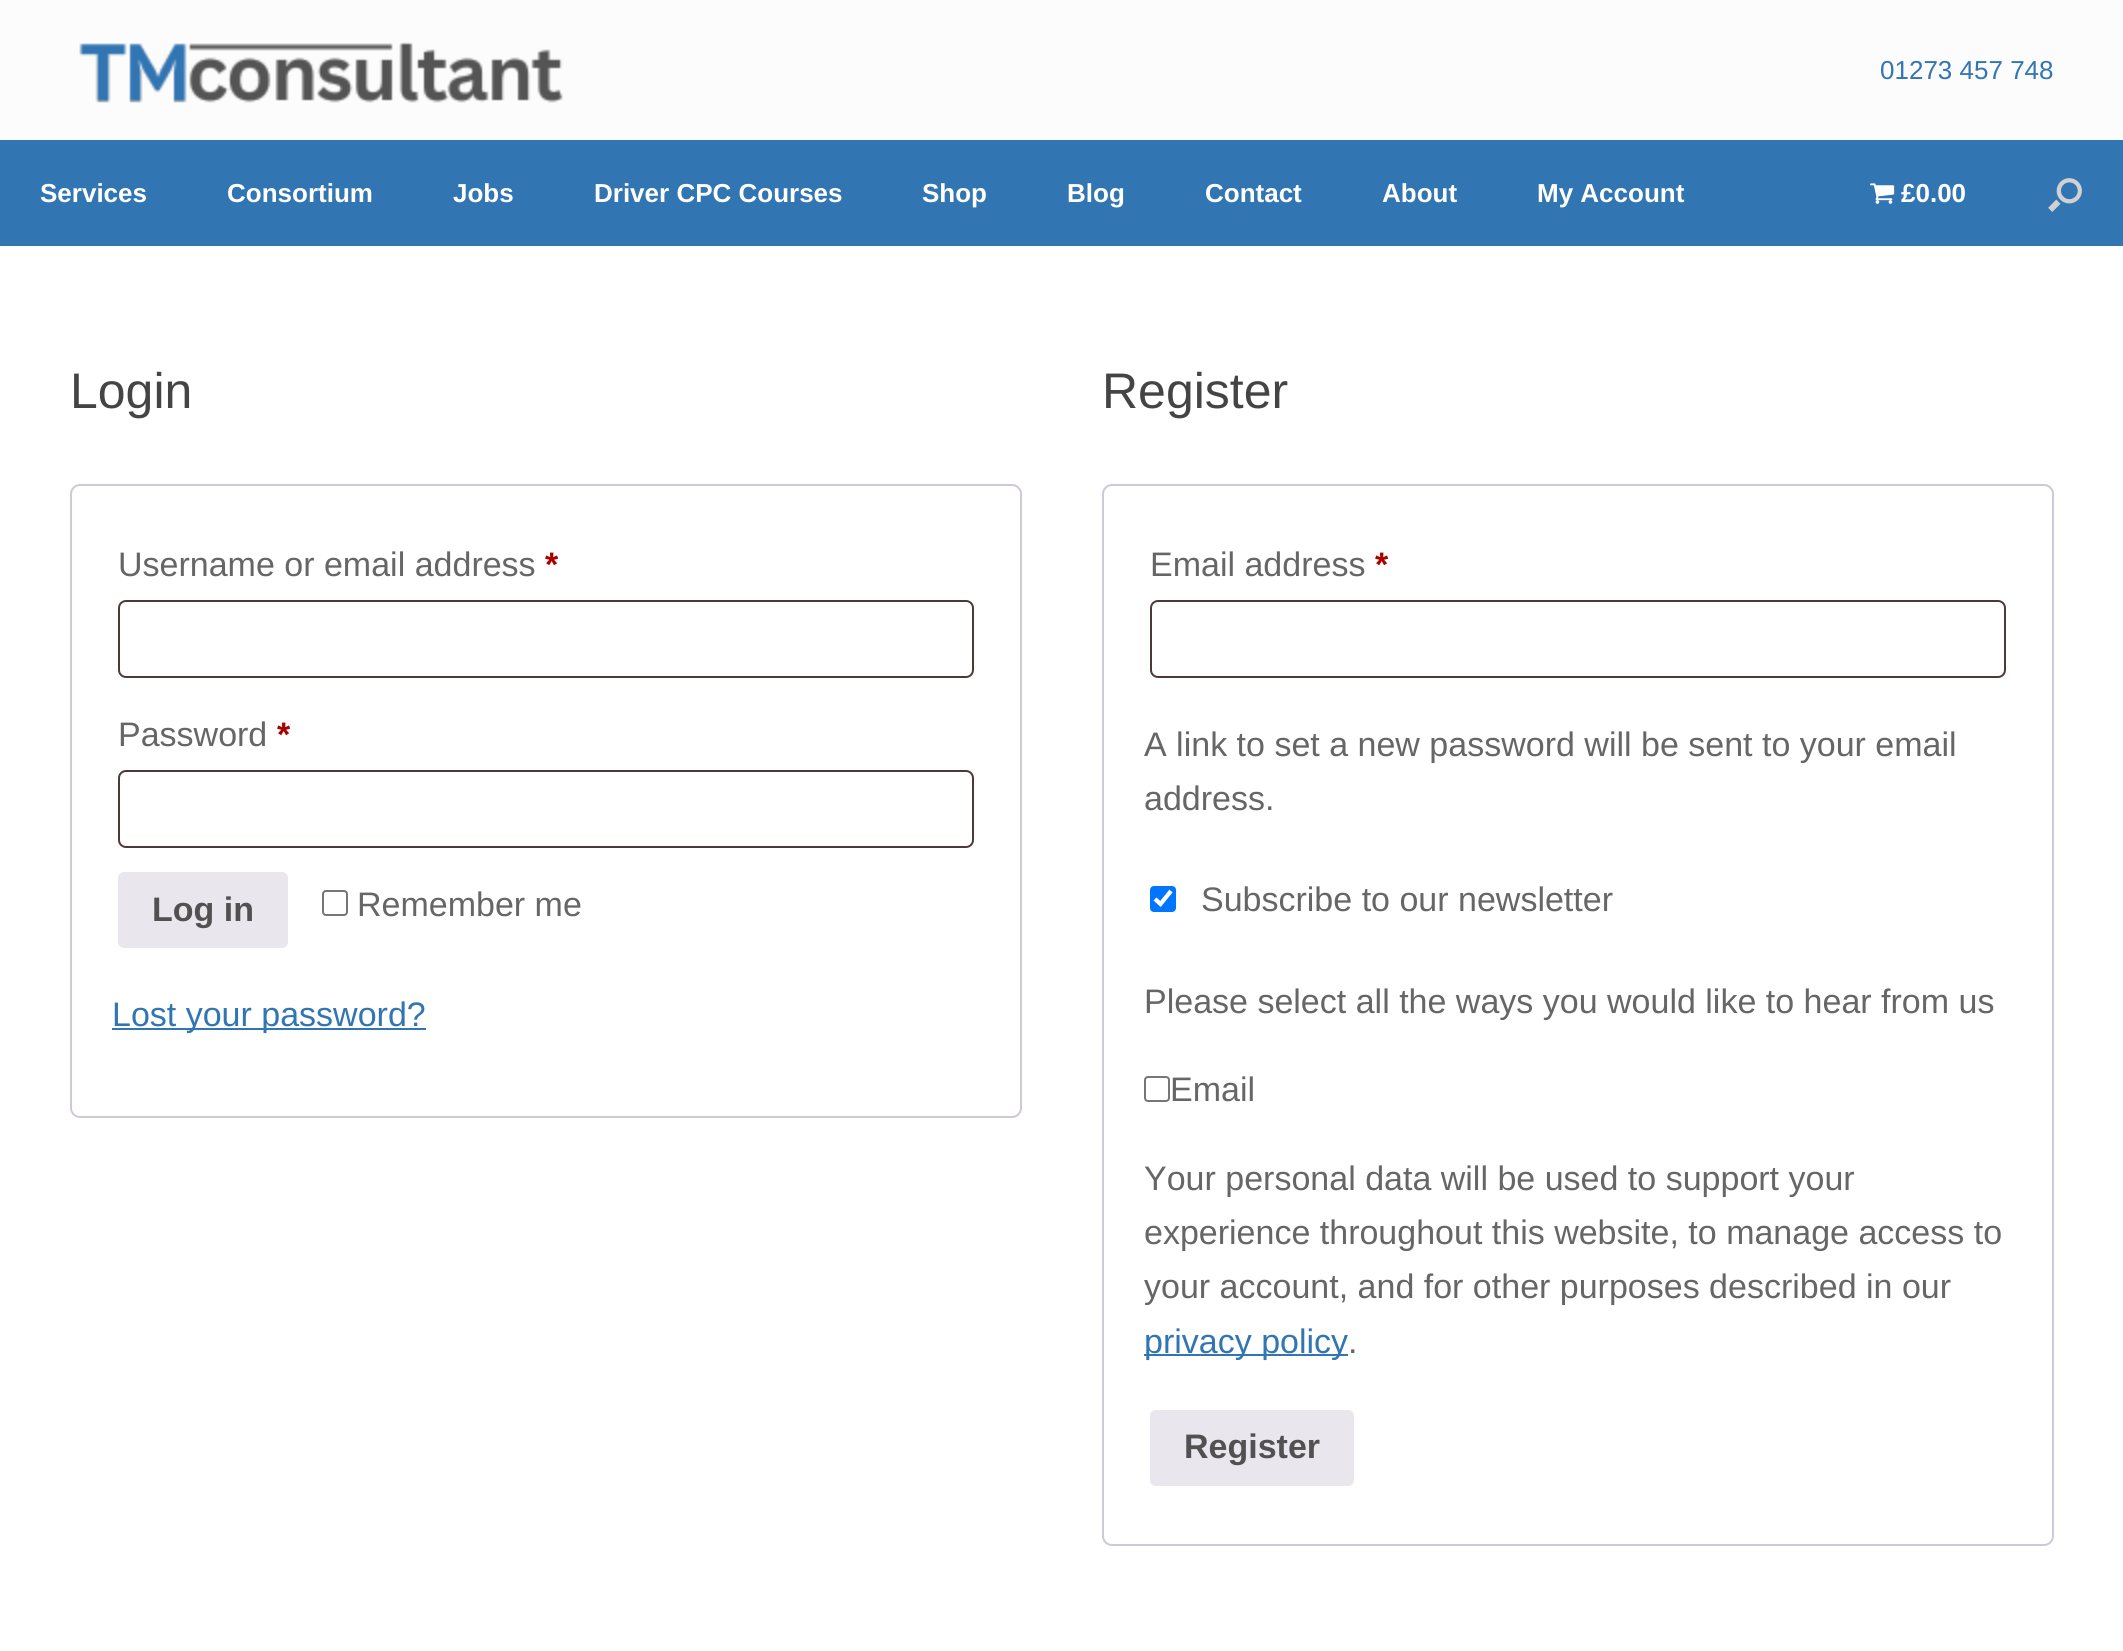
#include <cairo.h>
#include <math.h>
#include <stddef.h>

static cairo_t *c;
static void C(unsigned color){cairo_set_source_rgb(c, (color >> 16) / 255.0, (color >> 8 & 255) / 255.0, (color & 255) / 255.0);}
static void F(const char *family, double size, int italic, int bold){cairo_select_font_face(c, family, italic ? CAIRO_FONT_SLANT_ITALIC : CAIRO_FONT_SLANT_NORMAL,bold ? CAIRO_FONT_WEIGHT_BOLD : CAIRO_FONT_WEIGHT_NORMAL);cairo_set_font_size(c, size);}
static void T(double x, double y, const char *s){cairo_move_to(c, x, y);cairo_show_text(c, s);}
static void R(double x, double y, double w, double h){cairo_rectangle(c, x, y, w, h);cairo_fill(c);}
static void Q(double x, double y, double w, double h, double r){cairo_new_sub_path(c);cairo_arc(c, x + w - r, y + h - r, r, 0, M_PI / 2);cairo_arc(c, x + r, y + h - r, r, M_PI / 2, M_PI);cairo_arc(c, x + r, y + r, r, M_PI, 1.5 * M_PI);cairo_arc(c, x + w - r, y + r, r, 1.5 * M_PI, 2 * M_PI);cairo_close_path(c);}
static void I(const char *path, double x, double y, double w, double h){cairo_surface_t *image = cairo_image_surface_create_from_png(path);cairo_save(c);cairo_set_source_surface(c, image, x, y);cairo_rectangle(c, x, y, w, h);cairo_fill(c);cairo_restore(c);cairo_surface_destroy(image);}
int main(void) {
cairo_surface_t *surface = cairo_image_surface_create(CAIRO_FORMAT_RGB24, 2123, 1651);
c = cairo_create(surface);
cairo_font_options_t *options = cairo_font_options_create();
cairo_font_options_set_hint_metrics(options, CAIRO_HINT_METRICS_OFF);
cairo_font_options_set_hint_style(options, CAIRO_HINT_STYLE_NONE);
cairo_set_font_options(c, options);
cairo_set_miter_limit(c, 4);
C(0xfcfcfc);
cairo_paint(c);
I("1.png",79,42,484,61);
F("Liberation Sans",26,0,0);
C(0x3275b3);
T(1880,79,"01273 457 748");
R(0,140,2123,106);
F("Liberation Sans",26,0,1);
C(0xffffff);
T(40,202,"Services");
T(227,202,"Consortium");
T(453,202,"Jobs");
T(594,202,"Driver CPC Courses");
T(922,202,"Shop");
T(1067,202,"Blog");
T(1205,202,"Contact");
T(1382,202,"About");
T(1537,202,"My Account");
I("2.png",1870,183,25,21);
T(1901,202,"£0.00");
I("3.png",2048,178,34,34);
R(0,246,2123,1405);
F("Liberation Sans",50,0,0);
C(0x444444);
T(70,408,"Login");
Q(71,485,950,632,9);
C(0xcfc8d8);
cairo_stroke(c);
F("Liberation Sans",34,0,0);
C(0x666666);
T(118,576,"Username or email address");
F("Liberation Sans",34,0,1);
C(0xaa0000);
T(545,576,"*");
Q(119,601,854,76,7);
C(0x4d3939);
cairo_stroke(c);
F("Liberation Sans",34,0,0);
C(0x666666);
T(118,746,"Password");
F("Liberation Sans",34,0,1);
C(0xaa0000);
T(277,746,"*");
Q(119,771,854,76,7);
C(0x4d3939);
cairo_stroke(c);
C(0xe9e6ed);
Q(118,872,170,76,6);
cairo_fill(c);
C(0x515151);
T(152,921,"Log in");
Q(323,891,24,24,3);
C(0x767676);
cairo_stroke(c);
F("Liberation Sans",34,0,0);
C(0x666666);
T(357,916,"Remember me");
C(0x3275b3);
R(112,1028,314,2);
T(112,1026,"Lost your password?");
F("Liberation Sans",50,0,0);
C(0x444444);
T(1102,408,"Register");
Q(1103,485,950,1060,9);
C(0xcfc8d8);
cairo_stroke(c);
F("Liberation Sans",34,0,0);
C(0x666666);
T(1150,576,"Email address");
F("Liberation Sans",34,0,1);
C(0xaa0000);
T(1375,576,"*");
Q(1151,601,854,76,7);
C(0x4d3939);
cairo_stroke(c);
F("Liberation Sans",34,0,0);
C(0x666666);
T(1144,756,"A link to set a new password will be sent to your email");
T(1144,810,"address.");
C(0x0075ff);
Q(1150,886,26,26,4);
cairo_fill(c);
cairo_new_path(c);
cairo_move_to(c,1155,899);
cairo_line_to(c,1160.5,904);
cairo_line_to(c,1171,891);
C(0xffffff);
cairo_set_line_width(c,4.2);
cairo_stroke(c);
C(0x666666);
T(1201,911,"Subscribe to our newsletter");
T(1144,1013,"Please select all the ways you would like to hear from us");
Q(1145,1077,24,24,3);
C(0x767676);
cairo_set_line_width(c,2);
cairo_stroke(c);
C(0x666666);
T(1170,1101,"Email");
T(1144,1190,"Your personal data will be used to support your");
T(1144,1244,"experience throughout this website, to manage access to");
T(1144,1298,"your account, and for other purposes described in our");
C(0x3275b3);
R(1144,1354,204,2);
T(1144,1353,"privacy policy");
C(0x666666);
T(1348,1353,".");
C(0xe9e6ed);
Q(1150,1410,204,76,6);
cairo_fill(c);
F("Liberation Sans",34,0,1);
C(0x515151);
T(1184,1458,"Register");
cairo_surface_write_to_png(surface, "o.png");
cairo_font_options_destroy(options);
cairo_destroy(c);
cairo_surface_destroy(surface);
return 0;
}
